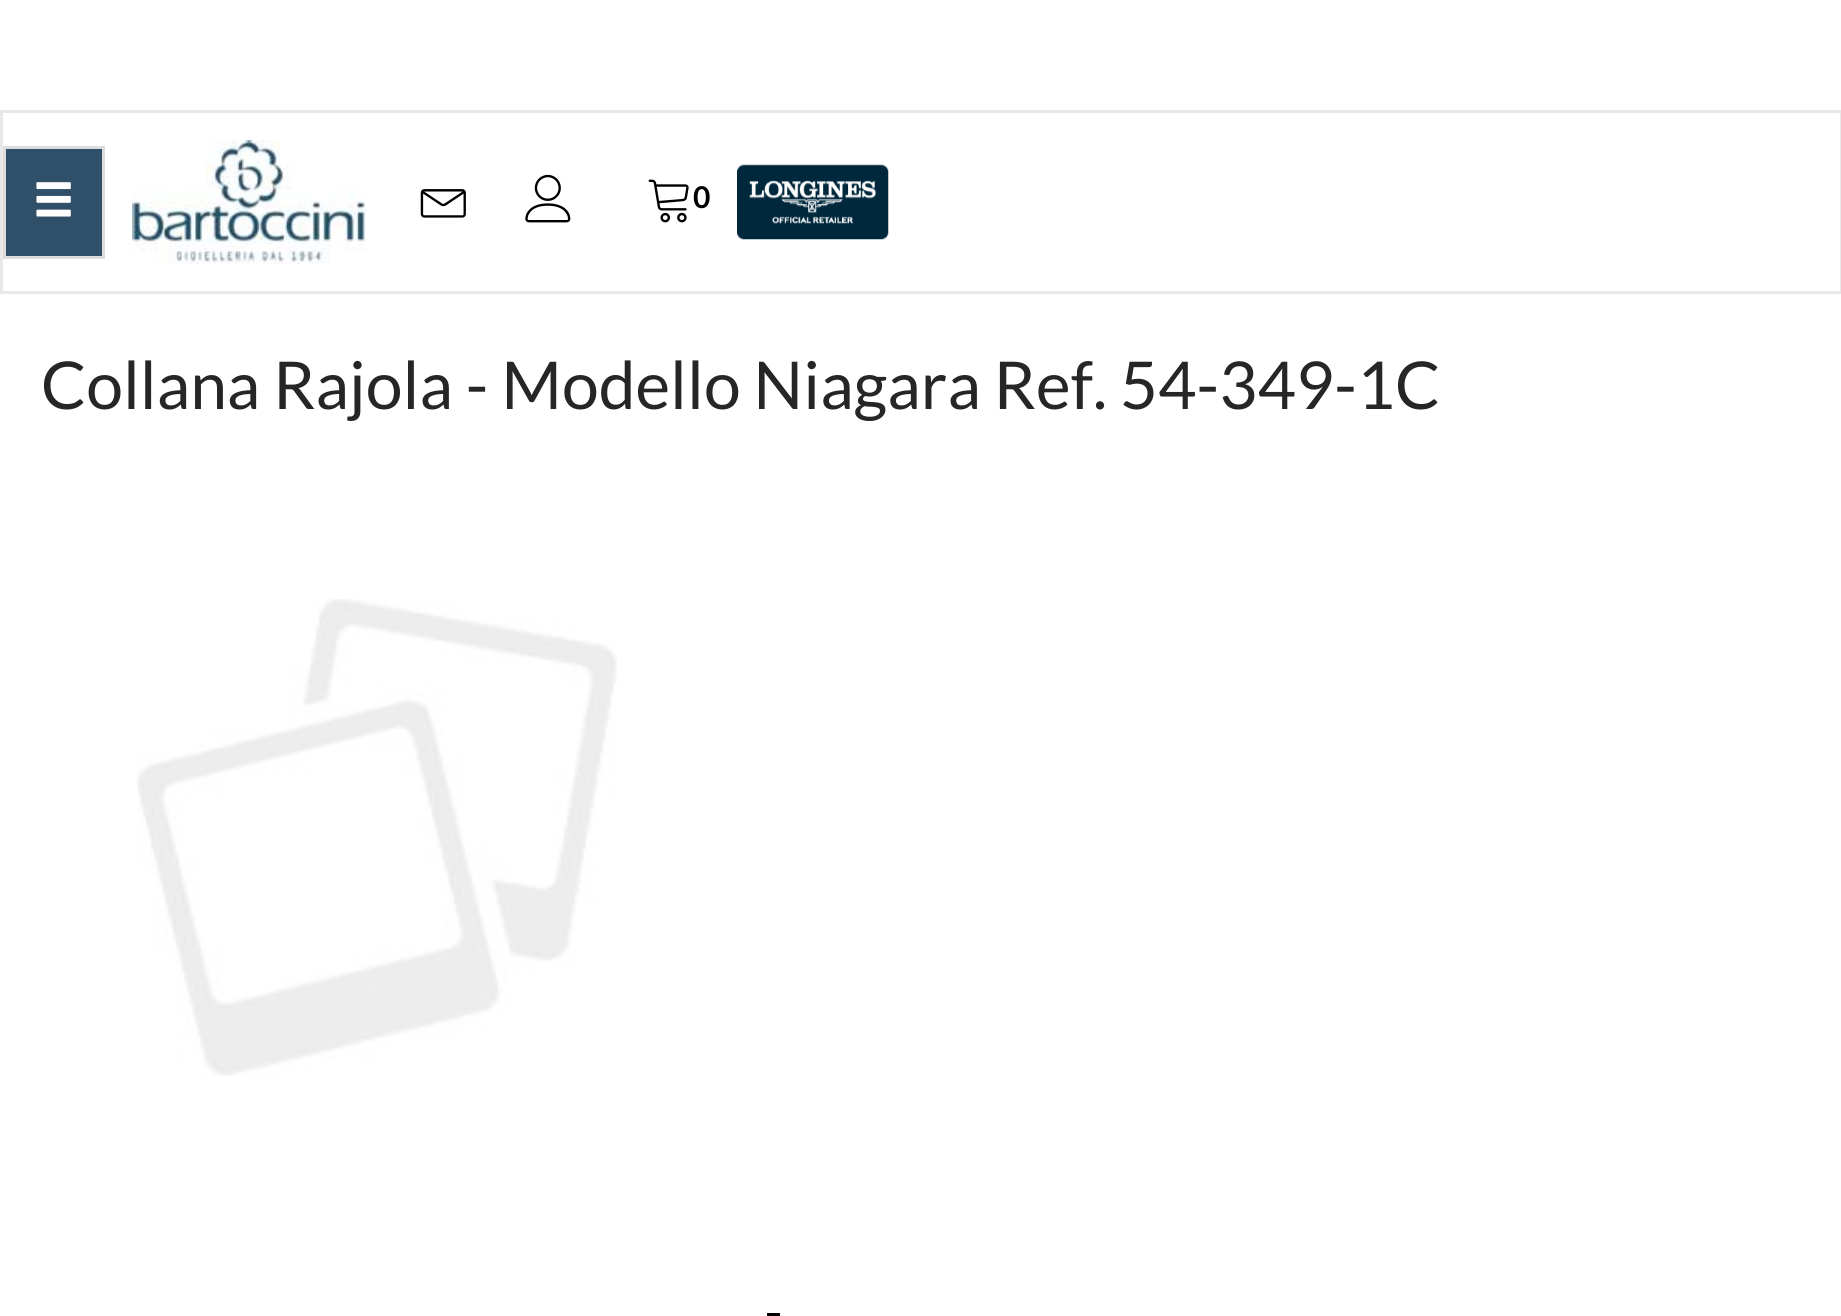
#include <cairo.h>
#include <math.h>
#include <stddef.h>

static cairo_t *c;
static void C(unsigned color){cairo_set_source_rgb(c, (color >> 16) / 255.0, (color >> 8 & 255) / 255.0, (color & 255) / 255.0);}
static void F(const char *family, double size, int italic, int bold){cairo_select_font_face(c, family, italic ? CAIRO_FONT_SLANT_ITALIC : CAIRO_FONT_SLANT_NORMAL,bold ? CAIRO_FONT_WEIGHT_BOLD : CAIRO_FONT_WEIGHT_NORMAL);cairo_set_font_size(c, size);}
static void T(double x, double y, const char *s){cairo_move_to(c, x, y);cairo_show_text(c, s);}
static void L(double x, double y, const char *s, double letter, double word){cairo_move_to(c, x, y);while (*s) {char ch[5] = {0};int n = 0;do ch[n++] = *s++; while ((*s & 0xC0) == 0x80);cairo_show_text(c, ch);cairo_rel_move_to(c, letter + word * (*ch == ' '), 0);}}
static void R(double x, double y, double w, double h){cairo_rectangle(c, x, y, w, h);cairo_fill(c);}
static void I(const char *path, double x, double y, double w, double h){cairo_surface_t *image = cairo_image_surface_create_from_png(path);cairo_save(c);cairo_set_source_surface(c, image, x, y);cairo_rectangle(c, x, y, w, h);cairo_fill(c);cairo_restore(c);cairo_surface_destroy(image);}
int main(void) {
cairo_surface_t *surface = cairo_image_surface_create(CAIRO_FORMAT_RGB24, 1841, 1316);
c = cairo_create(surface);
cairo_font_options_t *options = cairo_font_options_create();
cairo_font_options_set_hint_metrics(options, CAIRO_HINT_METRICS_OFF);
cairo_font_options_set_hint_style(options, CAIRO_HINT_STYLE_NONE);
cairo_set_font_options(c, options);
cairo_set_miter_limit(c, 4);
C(0xffffff);
cairo_paint(c);
cairo_rectangle(c,1.5,111.5,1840,181);
C(0xe8e8e8);
cairo_set_line_width(c,3);
cairo_stroke(c);
C(0x30506a);
cairo_rectangle(c,4.5,147.5,99,110);
cairo_fill_preserve(c);
C(0xdddddd);
cairo_stroke(c);
I("1.png",36,182,35,35);
I("2.png",132,140,234,125);
I("3.png",420,189,46,29);
I("4.png",525,174,46,49);
I("5.png",648,179,41,44);
F("Lato",30,0,1);
C(0x000000);
L(693,208,"0",3,0);
I("6.png",737,164,152,76);
F("Lato",66,0,0);
C(0x262626);
T(41,409,"Collana Rajola - Modello Niagara Ref. 54-349-1C");
I("7.png",137,599,480,477);
C(0x000000);
R(767,1313,13,3);
cairo_surface_write_to_png(surface, "o.png");
cairo_font_options_destroy(options);
cairo_destroy(c);
cairo_surface_destroy(surface);
return 0;
}
